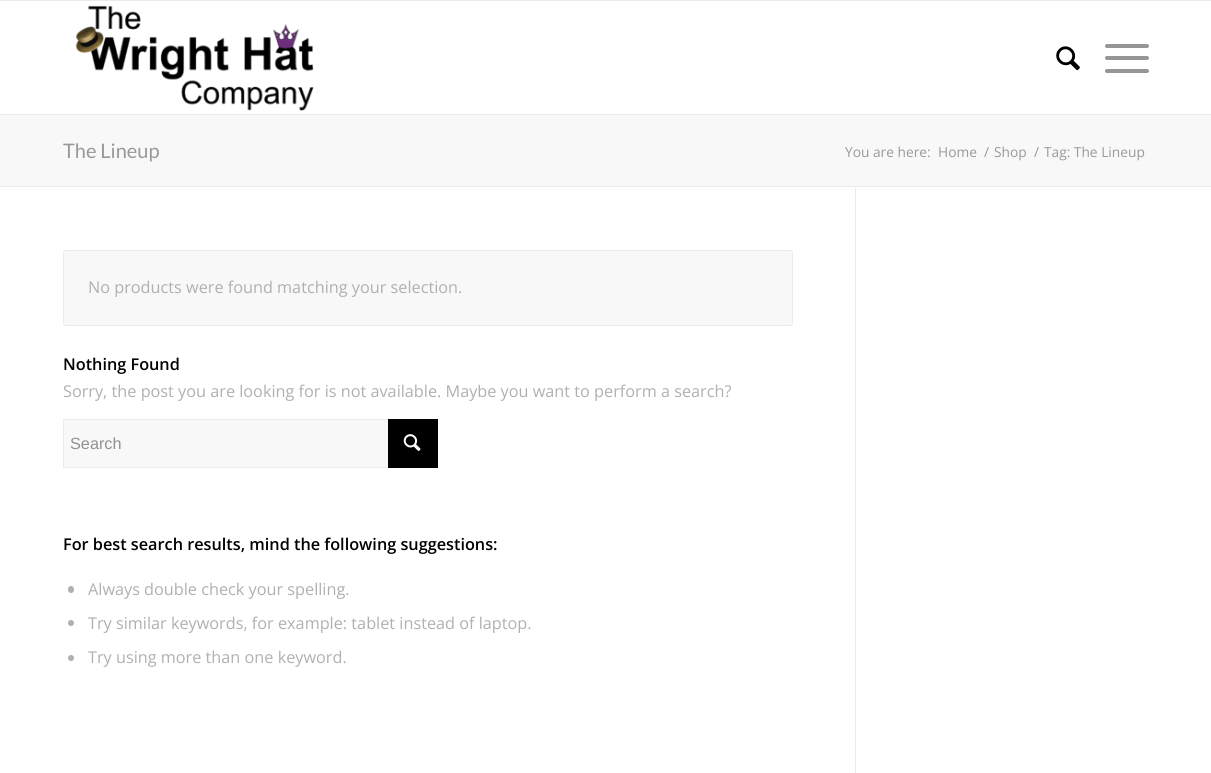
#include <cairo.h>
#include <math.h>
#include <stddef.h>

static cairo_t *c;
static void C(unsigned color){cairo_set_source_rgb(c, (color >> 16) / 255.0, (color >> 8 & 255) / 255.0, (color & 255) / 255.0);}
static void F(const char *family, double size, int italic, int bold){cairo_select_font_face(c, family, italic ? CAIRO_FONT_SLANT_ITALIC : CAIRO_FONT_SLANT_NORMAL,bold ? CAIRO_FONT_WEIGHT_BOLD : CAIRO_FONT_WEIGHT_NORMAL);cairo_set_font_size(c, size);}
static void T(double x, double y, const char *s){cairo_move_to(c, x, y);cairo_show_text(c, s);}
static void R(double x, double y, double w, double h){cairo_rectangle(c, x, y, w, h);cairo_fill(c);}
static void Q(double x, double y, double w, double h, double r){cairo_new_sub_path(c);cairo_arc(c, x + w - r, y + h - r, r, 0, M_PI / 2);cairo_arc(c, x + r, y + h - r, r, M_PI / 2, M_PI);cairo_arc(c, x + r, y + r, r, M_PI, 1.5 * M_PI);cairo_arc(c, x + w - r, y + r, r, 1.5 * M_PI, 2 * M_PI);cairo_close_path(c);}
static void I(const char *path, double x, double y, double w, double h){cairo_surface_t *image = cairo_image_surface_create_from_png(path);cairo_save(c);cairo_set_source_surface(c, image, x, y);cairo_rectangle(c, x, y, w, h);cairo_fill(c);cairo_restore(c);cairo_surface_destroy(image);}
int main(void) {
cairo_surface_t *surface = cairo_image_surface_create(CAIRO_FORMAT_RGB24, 1211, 773);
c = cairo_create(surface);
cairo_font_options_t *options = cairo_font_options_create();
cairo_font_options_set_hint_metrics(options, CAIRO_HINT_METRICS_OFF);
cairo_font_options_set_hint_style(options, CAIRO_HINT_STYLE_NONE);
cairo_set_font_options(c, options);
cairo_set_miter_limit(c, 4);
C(0xffffff);
cairo_paint(c);
C(0xebebeb);
R(0,0,1211,1);
R(0,114,1211,1);
I("1.png",75,5,239,106);
I("2.png",1056,46,24,25);
C(0x969696);
Q(1105,56,44,4,2);
cairo_fill(c);
Q(1105,44,44,4,2);
cairo_fill(c);
Q(1105,69,44,4,2);
cairo_fill(c);
C(0xf8f8f8);
R(0,115,1211,71);
F("Lato",20,0,0);
C(0x999999);
T(63,158,"The Lineup");
F("Open Sans",13.75,0,0);
T(845,157,"You are here:");
T(938,157,"Home");
T(984,157,"/");
T(994,157,"Shop");
T(1034,157,"/");
T(1044,157,"Tag: The Lineup");
C(0xebebeb);
R(0,186,1211,1);
R(855,188,1,585);
C(0xf8f8f8);
Q(63.5,250.5,729,75,2);
cairo_fill_preserve(c);
C(0xebebeb);
cairo_set_line_width(c,1);
cairo_stroke(c);
F("Open Sans",16.25,0,0);
C(0xb0b0b0);
T(88,293,"No products were found matching your selection.");
F("Open Sans SemiBold",16.25,0,0);
C(0x000000);
T(63,370,"Nothing Found");
F("Open Sans",16.25,0,0);
C(0xb0b0b0);
T(63,397,"Sorry, the post you are looking for is not available. Maybe you want to perform a search?");
C(0xf8f8f8);
R(64,420,324,47);
cairo_rectangle(c,63.5,419.5,374,48);
C(0xebebeb);
cairo_stroke(c);
F("Liberation Sans",16.25,0,0);
C(0x919191);
T(70,449,"Search");
C(0x000000);
R(388,419,50,49);
I("3.png",403,434,18,17);
F("Open Sans SemiBold",16.25,0,0);
T(63,550,"For best search results, mind the following suggestions:");
C(0xb0b0b0);
Q(68,586,6,7,3);
cairo_fill(c);
F("Open Sans",16.25,0,0);
T(88,595,"Always double check your spelling.");
cairo_new_path(c);
cairo_arc(c,71,623,3,0,2 * M_PI);
cairo_fill(c);
T(88,629,"Try similar keywords, for example: tablet instead of laptop.");
cairo_new_path(c);
cairo_arc(c,71,658,3,0,2 * M_PI);
cairo_fill(c);
T(88,663,"Try using more than one keyword.");
cairo_surface_write_to_png(surface, "o.png");
cairo_font_options_destroy(options);
cairo_destroy(c);
cairo_surface_destroy(surface);
return 0;
}
